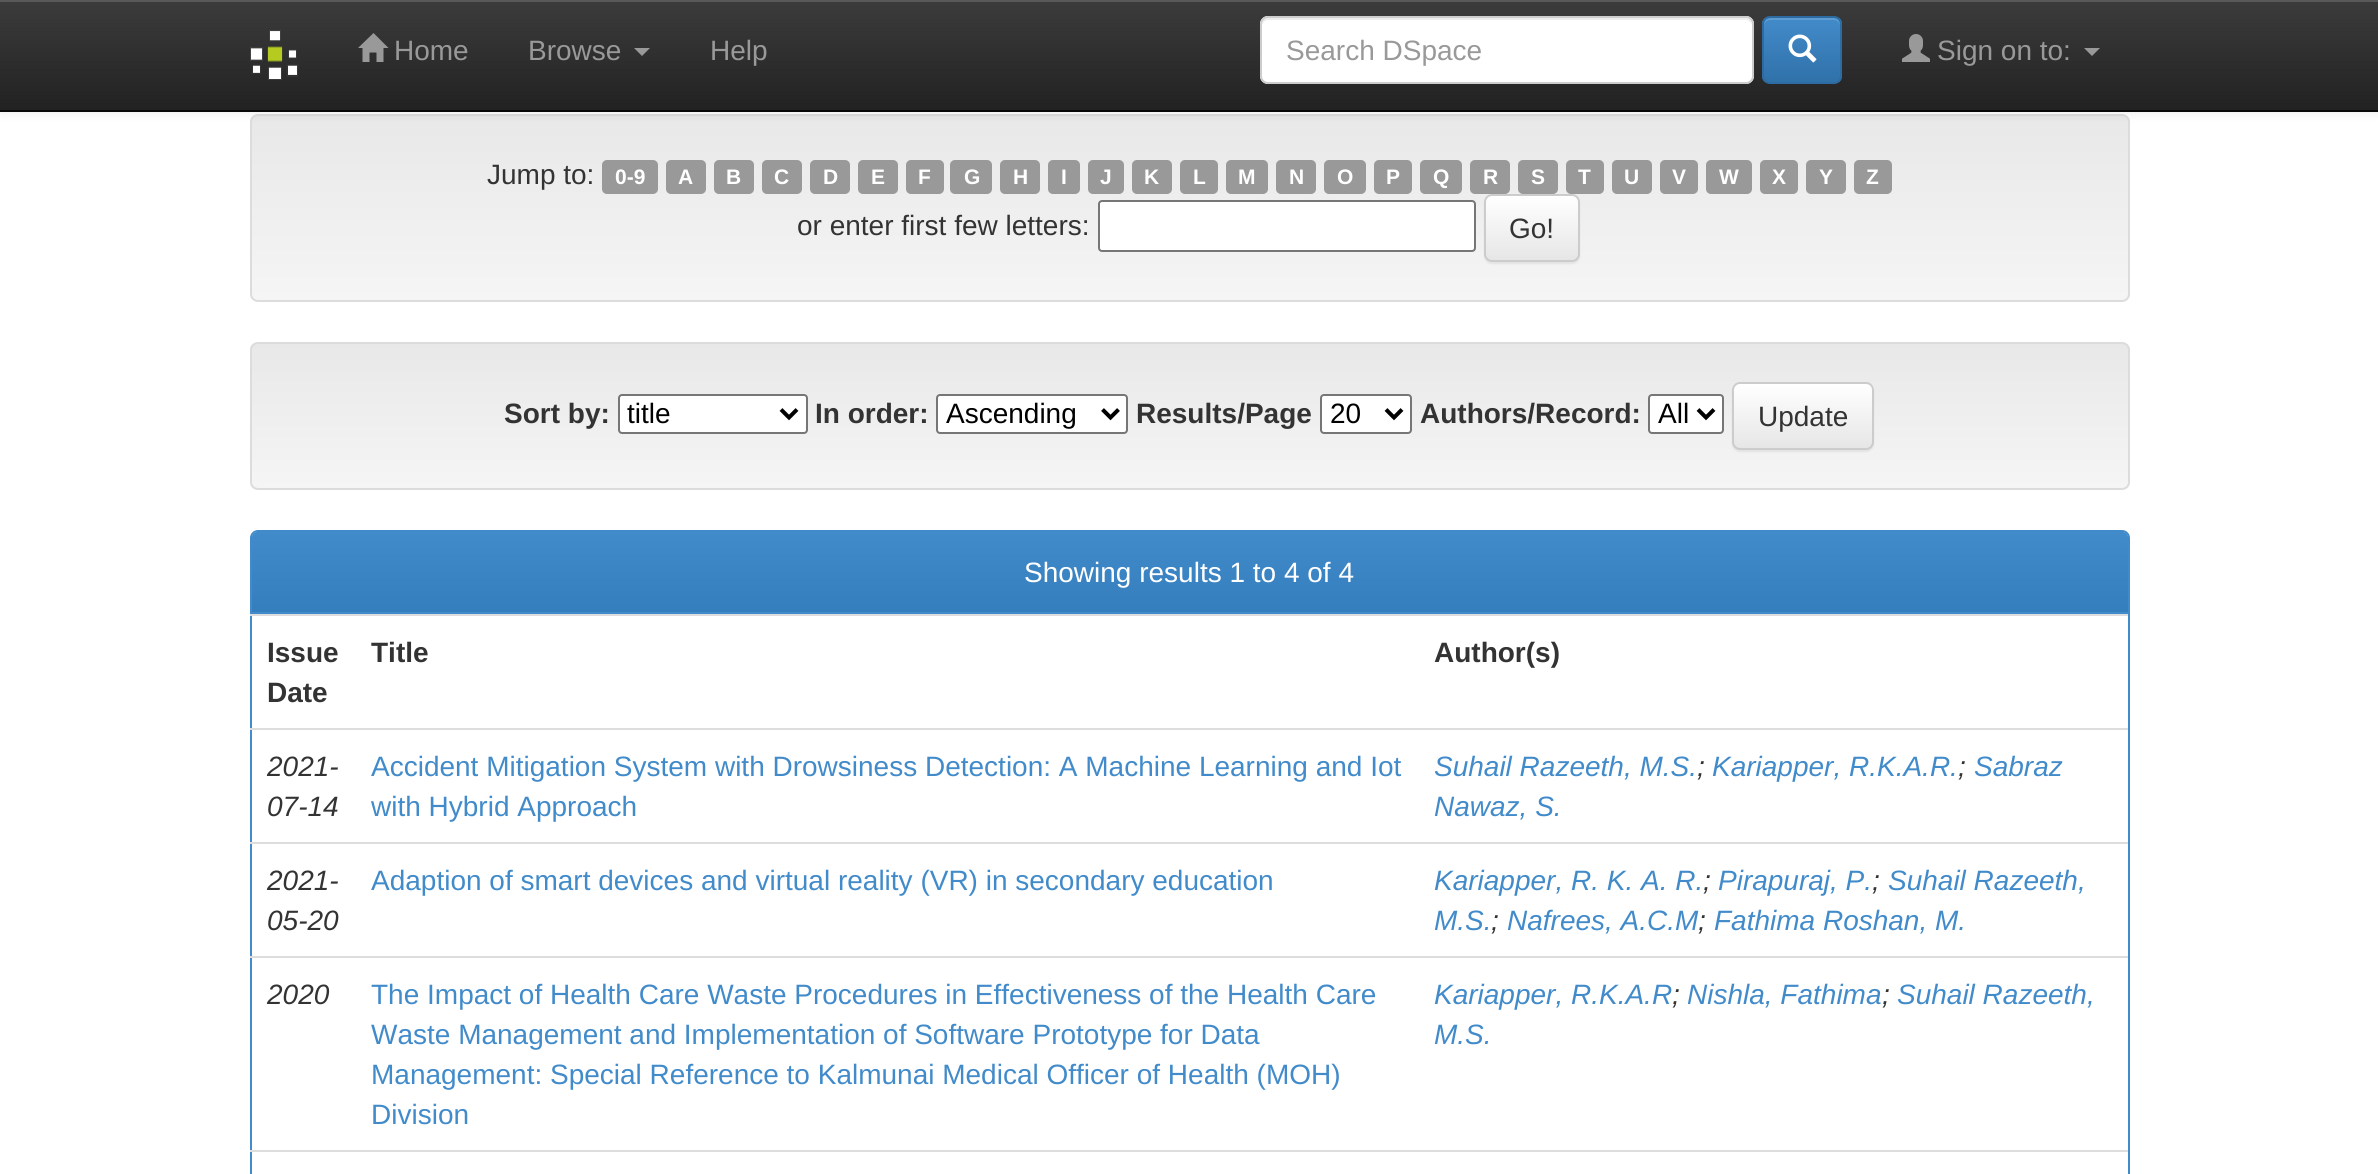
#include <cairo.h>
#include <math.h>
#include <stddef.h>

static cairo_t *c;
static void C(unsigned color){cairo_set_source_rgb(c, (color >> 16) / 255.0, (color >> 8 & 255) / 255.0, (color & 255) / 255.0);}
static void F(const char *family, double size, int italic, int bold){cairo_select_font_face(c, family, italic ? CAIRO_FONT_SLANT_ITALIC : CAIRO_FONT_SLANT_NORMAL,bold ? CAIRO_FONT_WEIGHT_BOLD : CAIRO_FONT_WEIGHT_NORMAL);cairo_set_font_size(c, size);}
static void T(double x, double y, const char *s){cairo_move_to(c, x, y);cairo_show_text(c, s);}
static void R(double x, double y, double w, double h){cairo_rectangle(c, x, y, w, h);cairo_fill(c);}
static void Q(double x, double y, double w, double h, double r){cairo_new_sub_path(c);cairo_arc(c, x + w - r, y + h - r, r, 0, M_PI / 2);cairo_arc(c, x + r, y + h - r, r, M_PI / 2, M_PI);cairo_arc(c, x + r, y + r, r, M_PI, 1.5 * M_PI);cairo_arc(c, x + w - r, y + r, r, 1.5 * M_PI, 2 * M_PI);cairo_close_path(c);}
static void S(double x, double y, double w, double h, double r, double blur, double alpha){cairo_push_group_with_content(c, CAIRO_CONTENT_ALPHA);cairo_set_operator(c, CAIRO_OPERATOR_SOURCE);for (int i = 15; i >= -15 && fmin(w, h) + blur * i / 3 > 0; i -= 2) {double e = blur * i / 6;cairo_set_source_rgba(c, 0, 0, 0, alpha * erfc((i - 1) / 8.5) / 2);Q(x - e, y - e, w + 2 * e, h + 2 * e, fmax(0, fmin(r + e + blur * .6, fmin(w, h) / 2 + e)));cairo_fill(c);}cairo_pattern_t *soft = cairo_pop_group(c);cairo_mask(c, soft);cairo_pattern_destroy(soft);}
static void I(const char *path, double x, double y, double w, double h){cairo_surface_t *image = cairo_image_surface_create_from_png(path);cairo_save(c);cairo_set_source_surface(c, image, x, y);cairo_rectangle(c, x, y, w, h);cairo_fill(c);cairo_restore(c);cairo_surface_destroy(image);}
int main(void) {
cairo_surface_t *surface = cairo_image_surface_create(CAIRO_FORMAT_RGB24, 2378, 1174);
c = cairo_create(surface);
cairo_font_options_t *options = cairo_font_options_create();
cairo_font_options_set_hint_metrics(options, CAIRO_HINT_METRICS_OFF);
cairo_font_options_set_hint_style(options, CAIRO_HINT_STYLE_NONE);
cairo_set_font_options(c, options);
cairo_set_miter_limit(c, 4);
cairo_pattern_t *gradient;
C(0xffffff);
cairo_paint(c);
cairo_save(c);
Q(250,114,1880,188,8);
cairo_clip(c);
gradient = cairo_pattern_create_linear(1190,116,1190,300);
cairo_pattern_add_color_stop_rgba(gradient,0,0.91,0.91,0.91,1);
cairo_pattern_add_color_stop_rgba(gradient,1,0.961,0.961,0.961,1);
cairo_set_source(c,gradient);
cairo_pattern_destroy(gradient);
R(250,116,1880,184);
cairo_restore(c);
Q(251,115,1878,186,7);
C(0xdcdcdc);
cairo_stroke(c);
C(0x000000);
S(0,2,2378,112,0,5,.07);
gradient = cairo_pattern_create_linear(1189,0,1189,110);
cairo_pattern_add_color_stop_rgba(gradient,0,0.235,0.235,0.235,1);
cairo_pattern_add_color_stop_rgba(gradient,1,0.133,0.133,0.133,1);
cairo_set_source(c,gradient);
cairo_pattern_destroy(gradient);
R(0,2,2378,108);
C(0x595959);
R(0,0,2378,2);
C(0x080808);
R(0,110,2378,2);
I("1.png",250,30,48,50);
C(0x999999);
cairo_new_path(c);
cairo_move_to(c,388.5,48);
cairo_line_to(c,383.5,48);
cairo_line_to(c,383.5,62);
cairo_line_to(c,376.5,62);
cairo_line_to(c,376.5,52.5);
cairo_line_to(c,369.5,52.5);
cairo_line_to(c,369.5,62);
cairo_line_to(c,362.5,62);
cairo_line_to(c,362.5,48);
cairo_line_to(c,358,48);
cairo_line_to(c,373.5,33);
cairo_close_path(c);
cairo_fill(c);
F("Liberation Sans",28,0,0);
T(394,60,"Home");
T(528,60,"Browse");
cairo_new_path(c);
cairo_move_to(c,634,48);
cairo_line_to(c,650,48);
cairo_line_to(c,642,56);
cairo_close_path(c);
cairo_fill(c);
T(710,60,"Help");
C(0xffffff);
Q(1260,16,494,68,8);
cairo_fill(c);
C(0xececec);
cairo_new_path(c);
cairo_move_to(c,1268,20);
cairo_line_to(c,1746,20);
cairo_curve_to(c,1749,20,1752,23,1752,26);
cairo_curve_to(c,1752,22,1751,18,1746,18);
cairo_line_to(c,1268,18);
cairo_curve_to(c,1263,18,1262,22,1262,26);
cairo_curve_to(c,1262,23,1265,20,1268,20);
cairo_close_path(c);
cairo_fill(c);
Q(1261,17,492,66,7);
C(0xcccccc);
cairo_stroke(c);
C(0x999999);
T(1286,60,"Search DSpace");
cairo_save(c);
Q(1762,16,80,68,8);
cairo_clip(c);
gradient = cairo_pattern_create_linear(1802,18,1802,82);
cairo_pattern_add_color_stop_rgba(gradient,0,0.259,0.545,0.792,1);
cairo_pattern_add_color_stop_rgba(gradient,1,0.188,0.443,0.663,1);
cairo_set_source(c,gradient);
cairo_pattern_destroy(gradient);
R(1762,18,80,64);
cairo_restore(c);
C(0x5e9cd1);
cairo_new_path(c);
cairo_move_to(c,1770,20);
cairo_line_to(c,1834,20);
cairo_curve_to(c,1837,20,1840,23,1840,26);
cairo_curve_to(c,1840,16,1832,18,1823,18);
cairo_line_to(c,1781,18);
cairo_curve_to(c,1772,18,1764,16,1764,26);
cairo_curve_to(c,1764,23,1767,20,1770,20);
cairo_close_path(c);
cairo_fill(c);
Q(1763,17,78,66,7);
C(0x2d6ca2);
cairo_stroke(c);
I("2.png",1788,34,29,29);
I("3.png",1902,34,28,28);
C(0x999999);
T(1937,60,"Sign on to:");
cairo_new_path(c);
cairo_move_to(c,2084,48);
cairo_line_to(c,2100,48);
cairo_line_to(c,2092,56);
cairo_close_path(c);
cairo_fill(c);
C(0x333333);
T(487,184,"Jump to:");
C(0x999999);
Q(602,160,56,34,5);
cairo_fill(c);
F("Liberation Sans",21,0,1);
C(0xffffff);
T(615,184,"0-9");
C(0x999999);
Q(666,160,40,34,5);
cairo_fill(c);
C(0xffffff);
T(678,184,"A");
C(0x999999);
Q(714,160,40,34,5);
cairo_fill(c);
C(0xffffff);
T(726,184,"B");
C(0x999999);
Q(762,160,40,34,5);
cairo_fill(c);
C(0xffffff);
T(774,184,"C");
C(0x999999);
Q(810,160,40,34,5);
cairo_fill(c);
C(0xffffff);
T(823,184,"D");
C(0x999999);
Q(858,160,40,34,5);
cairo_fill(c);
C(0xffffff);
T(871,184,"E");
C(0x999999);
Q(906,160,38,34,5);
cairo_fill(c);
C(0xffffff);
T(918,184,"F");
C(0x999999);
Q(950,160,42,34,5);
cairo_fill(c);
C(0xffffff);
T(964,184,"G");
C(0x999999);
Q(1000,160,40,34,5);
cairo_fill(c);
C(0xffffff);
T(1013,184,"H");
C(0x999999);
Q(1048,160,32,34,5);
cairo_fill(c);
C(0xffffff);
T(1061,184,"I");
C(0x999999);
Q(1088,160,36,34,5);
cairo_fill(c);
C(0xffffff);
T(1100,184,"J");
C(0x999999);
Q(1132,160,40,34,5);
cairo_fill(c);
C(0xffffff);
T(1144,184,"K");
C(0x999999);
Q(1180,160,38,34,5);
cairo_fill(c);
C(0xffffff);
T(1193,184,"L");
C(0x999999);
Q(1226,160,42,34,5);
cairo_fill(c);
C(0xffffff);
T(1238,184,"M");
C(0x999999);
Q(1276,160,40,34,5);
cairo_fill(c);
C(0xffffff);
T(1289,184,"N");
C(0x999999);
Q(1324,160,42,34,5);
cairo_fill(c);
C(0xffffff);
T(1337,184,"O");
C(0x999999);
Q(1374,160,38,34,5);
cairo_fill(c);
C(0xffffff);
T(1386,184,"P");
C(0x999999);
Q(1420,160,42,34,5);
cairo_fill(c);
C(0xffffff);
T(1433,184,"Q");
C(0x999999);
Q(1470,160,40,34,5);
cairo_fill(c);
C(0xffffff);
T(1483,184,"R");
C(0x999999);
Q(1518,160,40,34,5);
cairo_fill(c);
C(0xffffff);
T(1531,184,"S");
C(0x999999);
Q(1566,160,38,34,5);
cairo_fill(c);
C(0xffffff);
T(1578,184,"T");
C(0x999999);
Q(1612,160,40,34,5);
cairo_fill(c);
C(0xffffff);
T(1624,184,"U");
C(0x999999);
Q(1660,160,38,34,5);
cairo_fill(c);
C(0xffffff);
T(1672,184,"V");
C(0x999999);
Q(1706,160,46,34,5);
cairo_fill(c);
C(0xffffff);
T(1719,184,"W");
C(0x999999);
Q(1760,160,38,34,5);
cairo_fill(c);
C(0xffffff);
T(1772,184,"X");
C(0x999999);
Q(1806,160,40,34,5);
cairo_fill(c);
C(0xffffff);
T(1819,184,"Y");
C(0x999999);
Q(1854,160,38,34,5);
cairo_fill(c);
C(0xffffff);
T(1866,184,"Z");
F("Liberation Sans",28,0,0);
C(0x333333);
T(797,235,"or enter first few letters:");
C(0xffffff);
Q(1099,201,376,50,3);
cairo_fill_preserve(c);
C(0x767676);
cairo_stroke(c);
C(0x000000);
S(1484,196,96,68,8,1,.07);
cairo_save(c);
Q(1484,194,96,68,8);
cairo_clip(c);
gradient = cairo_pattern_create_linear(1532,196,1532,260);
cairo_pattern_add_color_stop_rgba(gradient,0,1,1,1,1);
cairo_pattern_add_color_stop_rgba(gradient,1,0.902,0.902,0.902,1);
cairo_set_source(c,gradient);
cairo_pattern_destroy(gradient);
R(1484,196,96,64);
cairo_restore(c);
Q(1485,195,94,66,7);
C(0xcccccc);
cairo_stroke(c);
C(0x333333);
T(1509,238,"Go!");
cairo_save(c);
Q(250,342,1880,148,8);
cairo_clip(c);
gradient = cairo_pattern_create_linear(1190,344,1190,488);
cairo_pattern_add_color_stop_rgba(gradient,0,0.91,0.91,0.91,1);
cairo_pattern_add_color_stop_rgba(gradient,1,0.961,0.961,0.961,1);
cairo_set_source(c,gradient);
cairo_pattern_destroy(gradient);
R(250,344,1880,144);
cairo_restore(c);
Q(251,343,1878,146,7);
C(0xdcdcdc);
cairo_stroke(c);
F("Liberation Sans",28,0,1);
C(0x333333);
T(504,423,"Sort by:");
C(0xffffff);
Q(619,395,188,38,3);
cairo_fill_preserve(c);
C(0x767676);
cairo_stroke(c);
cairo_new_path(c);
cairo_move_to(c,781,409.5);
cairo_line_to(c,789,417.5);
cairo_line_to(c,797,409.5);
C(0x000000);
cairo_set_line_width(c,4);
cairo_stroke(c);
F("Liberation Sans",28,0,0);
T(627,423,"title");
F("Liberation Sans",28,0,1);
C(0x333333);
T(815,423,"In order:");
C(0xffffff);
Q(937,395,190,38,3);
cairo_fill_preserve(c);
C(0x767676);
cairo_set_line_width(c,2);
cairo_stroke(c);
cairo_new_path(c);
cairo_move_to(c,1102.5,409.5);
cairo_line_to(c,1110.5,417.5);
cairo_line_to(c,1118.5,409.5);
C(0x000000);
cairo_set_line_width(c,4);
cairo_stroke(c);
F("Liberation Sans",28,0,0);
T(946,423,"Ascending");
F("Liberation Sans",28,0,1);
C(0x333333);
T(1136,423,"Results/Page");
C(0xffffff);
Q(1321,395,90,38,3);
cairo_fill_preserve(c);
C(0x767676);
cairo_set_line_width(c,2);
cairo_stroke(c);
cairo_new_path(c);
cairo_move_to(c,1386,409.5);
cairo_line_to(c,1394,417.5);
cairo_line_to(c,1402,409.5);
C(0x000000);
cairo_set_line_width(c,4);
cairo_stroke(c);
F("Liberation Sans",28,0,0);
T(1330,423,"20");
F("Liberation Sans",28,0,1);
C(0x333333);
T(1420,423,"Authors/Record:");
C(0xffffff);
Q(1649,395,74,38,3);
cairo_fill_preserve(c);
C(0x767676);
cairo_set_line_width(c,2);
cairo_stroke(c);
cairo_new_path(c);
cairo_move_to(c,1698,409.5);
cairo_line_to(c,1706,417.5);
cairo_line_to(c,1714,409.5);
C(0x000000);
cairo_set_line_width(c,4);
cairo_stroke(c);
F("Liberation Sans",28,0,0);
T(1658,423,"All");
C(0x000000);
S(1732,384,142,68,8,1,.07);
cairo_save(c);
Q(1732,382,142,68,8);
cairo_clip(c);
gradient = cairo_pattern_create_linear(1803,384,1803,448);
cairo_pattern_add_color_stop_rgba(gradient,0,1,1,1,1);
cairo_pattern_add_color_stop_rgba(gradient,1,0.902,0.902,0.902,1);
cairo_set_source(c,gradient);
cairo_pattern_destroy(gradient);
R(1732,384,142,64);
cairo_restore(c);
Q(1733,383,140,66,7);
C(0xcccccc);
cairo_set_line_width(c,2);
cairo_stroke(c);
C(0x333333);
T(1758,426,"Update");
Q(251,531,1878,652,7);
C(0x428bca);
cairo_stroke(c);
cairo_new_path(c);
cairo_move_to(c,258,532);
cairo_line_to(c,2122,532);
cairo_curve_to(c,2125.5,532,2128,534.5,2128,538);
cairo_line_to(c,2128,614);
cairo_line_to(c,252,614);
cairo_line_to(c,252,538);
cairo_curve_to(c,252,534.5,254.5,532,258,532);
cairo_close_path(c);
cairo_fill(c);
gradient = cairo_pattern_create_linear(1190,532,1190,612);
cairo_pattern_add_color_stop_rgba(gradient,0,0.259,0.545,0.792,1);
cairo_pattern_add_color_stop_rgba(gradient,1,0.208,0.494,0.741,1);
cairo_set_source(c,gradient);
cairo_pattern_destroy(gradient);
cairo_new_path(c);
cairo_move_to(c,258,532);
cairo_line_to(c,2122,532);
cairo_curve_to(c,2125.5,532,2128,534.5,2128,538);
cairo_line_to(c,2128,612);
cairo_line_to(c,252,612);
cairo_line_to(c,252,538);
cairo_curve_to(c,252,534.5,254.5,532,258,532);
cairo_close_path(c);
cairo_fill(c);
C(0xffffff);
T(1024,582,"Showing results 1 to 4 of 4");
F("Liberation Sans",28,0,1);
C(0x333333);
T(267,662,"Issue");
T(267,702,"Date");
T(371,662,"Title");
C(0xdddddd);
R(250,614,1878,2);
C(0x333333);
T(1434,662,"Author(s)");
F("Liberation Sans",28,1,0);
T(267,776,"2021-");
T(267,816,"07-14");
F("Liberation Sans",28,0,0);
C(0x428bca);
T(371,776,"Accident Mitigation System with Drowsiness Detection: A Machine Learning and Iot");
T(371,816,"with Hybrid Approach");
C(0xdddddd);
R(250,728,1878,2);
F("Liberation Sans",28,1,0);
C(0x428bca);
T(1434,776,"Suhail Razeeth, M.S.");
C(0x333333);
T(1697,776,";");
C(0x428bca);
T(1712,776,"Kariapper, R.K.A.R.");
C(0x333333);
T(1958,776,";");
C(0x428bca);
T(1974,776,"Sabraz");
T(1434,816,"Nawaz, S.");
C(0x333333);
T(267,890,"2021-");
T(267,930,"05-20");
F("Liberation Sans",28,0,0);
C(0x428bca);
T(371,890,"Adaption of smart devices and virtual reality (VR) in secondary education");
C(0xdddddd);
R(250,842,1878,2);
F("Liberation Sans",28,1,0);
C(0x428bca);
T(1434,890,"Kariapper, R. K. A. R.");
C(0x333333);
T(1703,890,";");
C(0x428bca);
T(1718,890,"Pirapuraj, P.");
C(0x333333);
T(1872,890,";");
C(0x428bca);
T(1888,890,"Suhail Razeeth,");
T(1434,930,"M.S.");
C(0x333333);
T(1491,930,";");
C(0x428bca);
T(1507,930,"Nafrees, A.C.M");
C(0x333333);
T(1698,930,";");
C(0x428bca);
T(1714,930,"Fathima Roshan, M.");
C(0x333333);
T(267,1004,"2020");
F("Liberation Sans",28,0,0);
C(0x428bca);
T(371,1004,"The Impact of Health Care Waste Procedures in Effectiveness of the Health Care");
T(371,1044,"Waste Management and Implementation of Software Prototype for Data");
T(371,1084,"Management: Special Reference to Kalmunai Medical Officer of Health (MOH)");
T(371,1124,"Division");
C(0xdddddd);
R(250,956,1878,2);
F("Liberation Sans",28,1,0);
C(0x428bca);
T(1434,1004,"Kariapper, R.K.A.R");
C(0x333333);
T(1672,1004,";");
C(0x428bca);
T(1687,1004,"Nishla, Fathima");
C(0x333333);
T(1882,1004,";");
C(0x428bca);
T(1897,1004,"Suhail Razeeth,");
T(1434,1044,"M.S.");
C(0xdddddd);
R(250,1150,1878,2);
cairo_surface_write_to_png(surface, "o.png");
cairo_font_options_destroy(options);
cairo_destroy(c);
cairo_surface_destroy(surface);
return 0;
}
